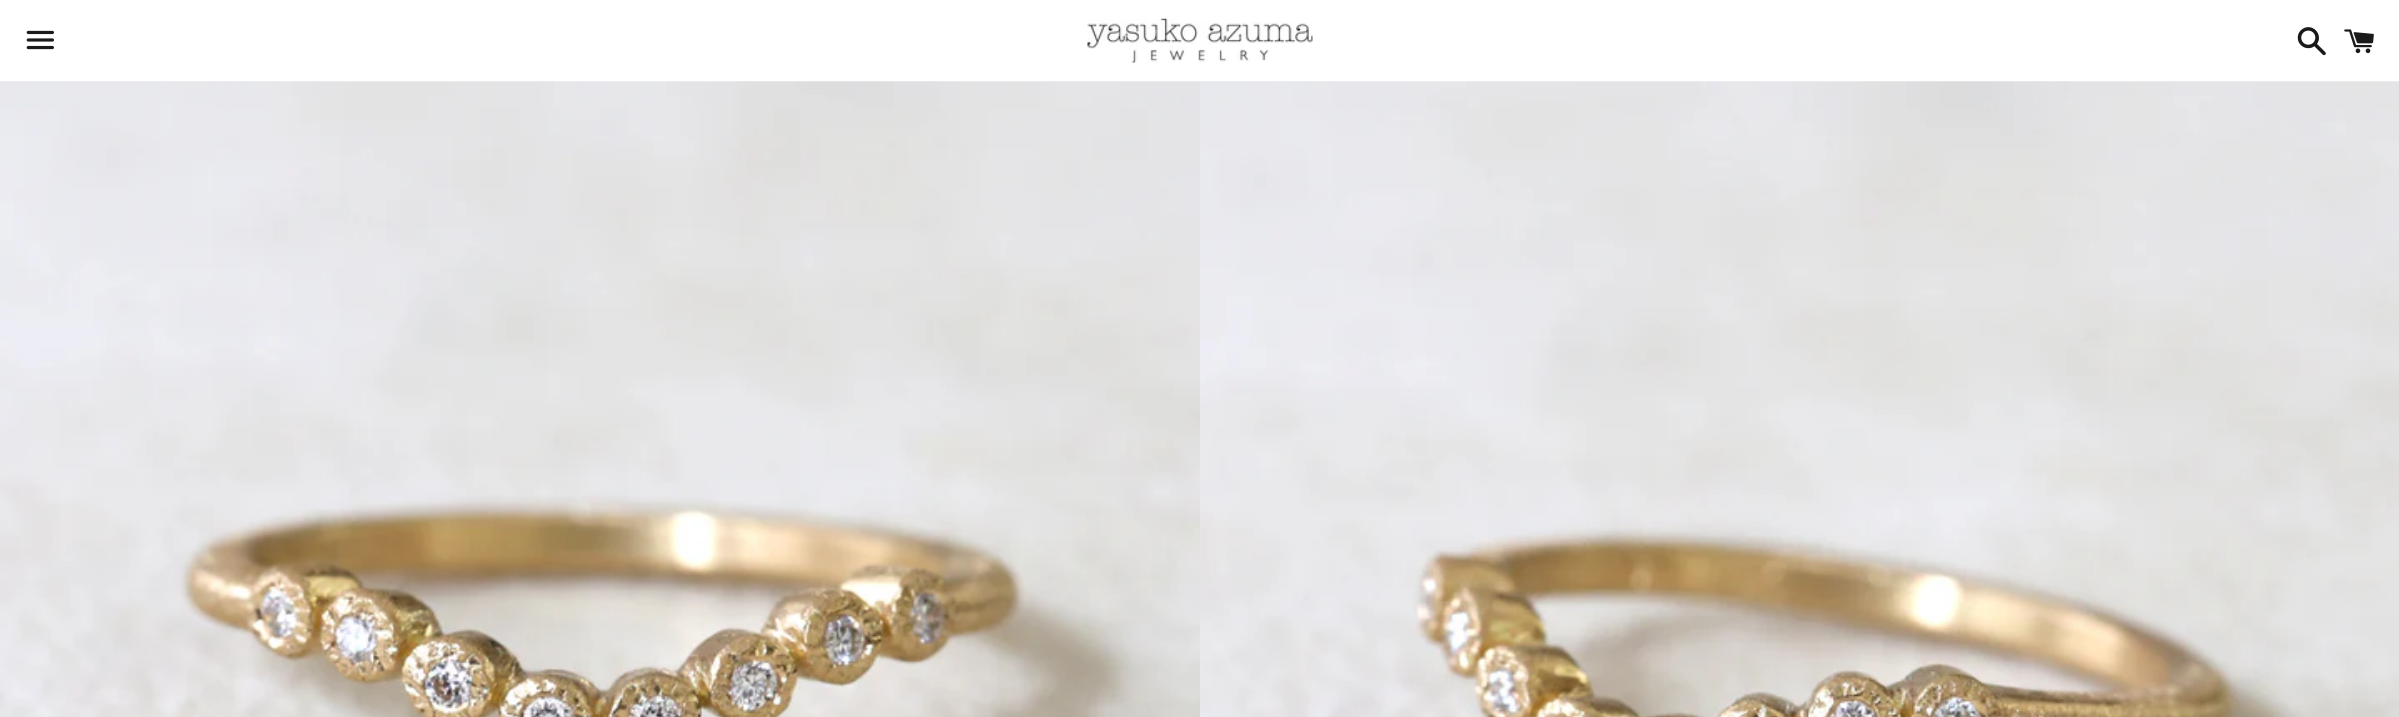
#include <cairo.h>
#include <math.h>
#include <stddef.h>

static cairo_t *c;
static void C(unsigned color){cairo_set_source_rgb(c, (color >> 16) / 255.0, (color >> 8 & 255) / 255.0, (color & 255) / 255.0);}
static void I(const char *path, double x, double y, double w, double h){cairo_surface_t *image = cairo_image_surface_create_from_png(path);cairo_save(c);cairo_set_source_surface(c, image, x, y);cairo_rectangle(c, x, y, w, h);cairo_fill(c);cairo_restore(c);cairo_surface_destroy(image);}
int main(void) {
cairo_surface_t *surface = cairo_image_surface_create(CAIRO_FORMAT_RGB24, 2399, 717);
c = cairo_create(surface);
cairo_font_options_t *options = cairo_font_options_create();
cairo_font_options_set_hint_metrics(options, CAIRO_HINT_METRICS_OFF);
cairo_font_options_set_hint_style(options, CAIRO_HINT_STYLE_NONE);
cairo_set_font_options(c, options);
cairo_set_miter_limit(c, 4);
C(0xffffff);
cairo_paint(c);
I("1.png",26,30,28,20);
I("2.png",1087,18,226,45);
I("3.png",2297,27,29,29);
I("4.png",2344,29,30,25);
I("5.png",0,81,1200,636);
I("6.png",1200,81,1199,636);
cairo_surface_write_to_png(surface, "o.png");
cairo_font_options_destroy(options);
cairo_destroy(c);
cairo_surface_destroy(surface);
return 0;
}
